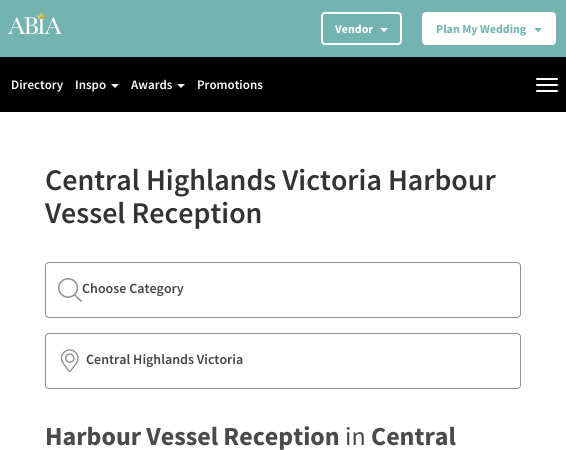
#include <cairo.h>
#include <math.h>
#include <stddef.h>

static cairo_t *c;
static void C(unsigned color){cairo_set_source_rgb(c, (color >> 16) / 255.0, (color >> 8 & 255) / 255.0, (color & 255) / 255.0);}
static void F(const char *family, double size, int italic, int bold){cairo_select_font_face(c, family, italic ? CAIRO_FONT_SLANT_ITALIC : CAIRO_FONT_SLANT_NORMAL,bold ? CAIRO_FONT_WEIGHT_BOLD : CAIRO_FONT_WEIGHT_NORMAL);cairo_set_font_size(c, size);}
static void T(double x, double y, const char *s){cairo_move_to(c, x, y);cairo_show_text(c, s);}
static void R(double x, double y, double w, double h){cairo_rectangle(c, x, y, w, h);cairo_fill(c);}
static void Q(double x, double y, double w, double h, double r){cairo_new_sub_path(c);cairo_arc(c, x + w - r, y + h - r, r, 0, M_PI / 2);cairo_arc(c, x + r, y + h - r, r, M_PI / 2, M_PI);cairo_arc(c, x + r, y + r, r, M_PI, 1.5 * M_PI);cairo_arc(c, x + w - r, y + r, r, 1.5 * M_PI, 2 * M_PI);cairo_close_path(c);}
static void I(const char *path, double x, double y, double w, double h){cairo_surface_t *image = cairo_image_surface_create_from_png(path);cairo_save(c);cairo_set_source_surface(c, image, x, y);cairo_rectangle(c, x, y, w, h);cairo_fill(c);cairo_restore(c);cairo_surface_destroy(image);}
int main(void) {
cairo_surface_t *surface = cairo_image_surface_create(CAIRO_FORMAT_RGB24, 566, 450);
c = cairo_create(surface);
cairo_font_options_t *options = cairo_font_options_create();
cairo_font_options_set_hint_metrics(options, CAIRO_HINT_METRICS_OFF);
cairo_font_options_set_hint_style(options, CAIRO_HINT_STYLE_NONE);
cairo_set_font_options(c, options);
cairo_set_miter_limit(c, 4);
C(0xffffff);
cairo_paint(c);
C(0x73b4b1);
R(0,0,566,57);
I("1.png",8,12,54,22);
Q(322,13,79,31,3);
C(0xffffff);
cairo_stroke(c);
F("Source Sans Pro",12,0,1);
T(335,33,"Vendor");
cairo_new_path(c);
cairo_move_to(c,380,28);
cairo_line_to(c,388,28);
cairo_line_to(c,384,32);
cairo_close_path(c);
cairo_fill(c);
Q(423,13,132,31,3);
cairo_fill_preserve(c);
cairo_stroke(c);
C(0x73b4b1);
T(436,33,"Plan My Wedding");
cairo_new_path(c);
cairo_move_to(c,534,28);
cairo_line_to(c,542,28);
cairo_line_to(c,538,32);
cairo_close_path(c);
cairo_fill(c);
C(0x000000);
R(0,57,566,55);
F("Source Sans Pro SemiBold",13,0,0);
C(0xffffff);
T(11,89,"Directory");
T(75,89,"Inspo");
cairo_new_path(c);
cairo_move_to(c,111,84);
cairo_line_to(c,119,84);
cairo_line_to(c,115,88);
cairo_close_path(c);
cairo_fill(c);
T(131,89,"Awards");
cairo_new_path(c);
cairo_move_to(c,177,84);
cairo_line_to(c,185,84);
cairo_line_to(c,181,88);
cairo_close_path(c);
cairo_fill(c);
T(197,89,"Promotions");
Q(536,78,22,2,1);
cairo_fill(c);
Q(536,84,22,2,1);
cairo_fill(c);
Q(536,90,22,2,1);
cairo_fill(c);
F("Source Sans Pro SemiBold",30,0,0);
C(0x333333);
T(45,190,"Central Highlands Victoria Harbour");
T(45,223,"Vessel Reception");
Q(45.5,262.5,475,55,3.5);
C(0x909090);
cairo_set_line_width(c,1);
cairo_stroke(c);
I("2.png",58,278,24,24);
F("Source Sans Pro SemiBold",14,0,0);
C(0x444444);
T(82,293,"Choose Category");
Q(45.5,333.5,475,55,3.5);
C(0x909090);
cairo_stroke(c);
I("3.png",60,349,19,23);
C(0x444444);
T(86,364,"Central Highlands Victoria");
F("Source Sans Pro",26,0,1);
C(0x4a4a4a);
T(45,445,"Harbour Vessel Reception");
F("Source Sans Pro",26,0,0);
T(345,445,"in");
F("Source Sans Pro",26,0,1);
T(371,445,"Central");
cairo_surface_write_to_png(surface, "o.png");
cairo_font_options_destroy(options);
cairo_destroy(c);
cairo_surface_destroy(surface);
return 0;
}
